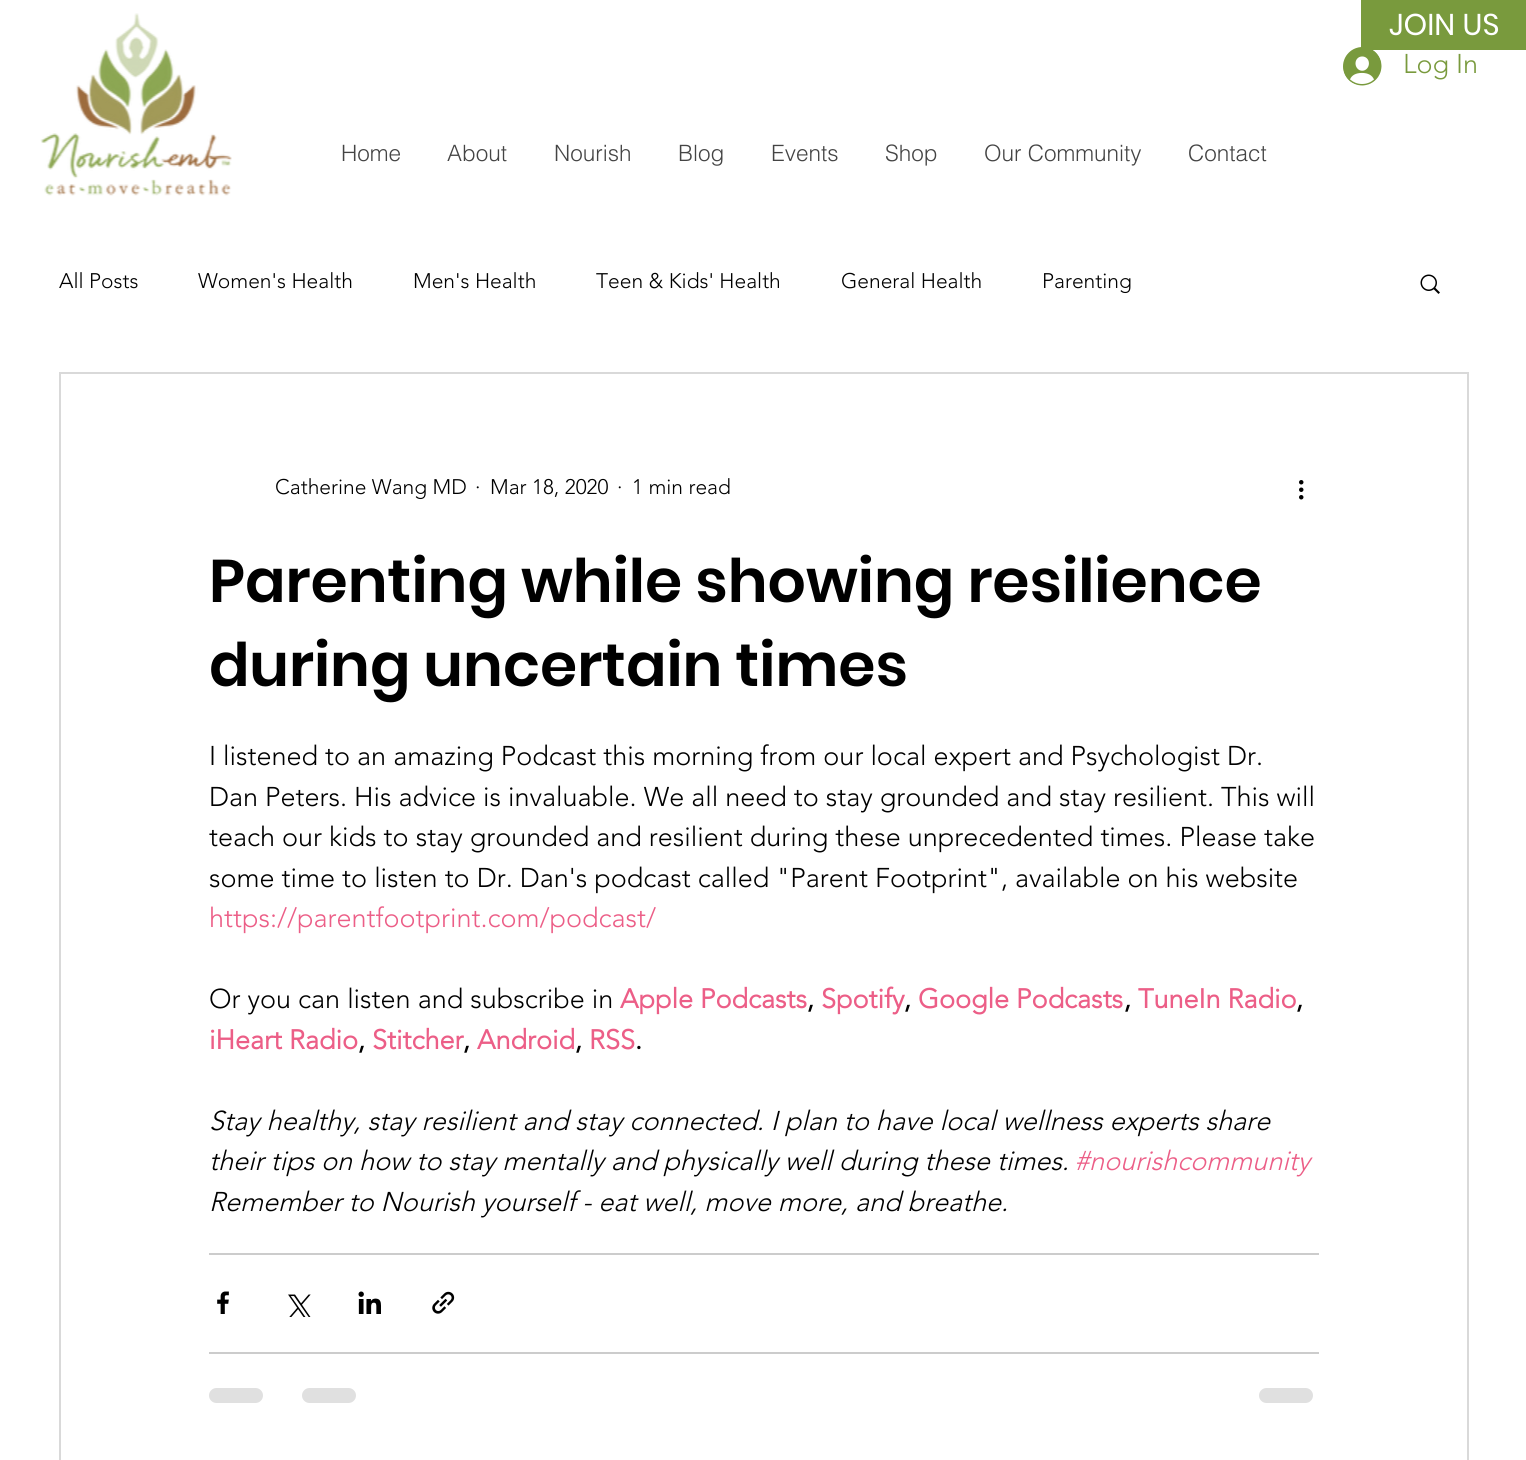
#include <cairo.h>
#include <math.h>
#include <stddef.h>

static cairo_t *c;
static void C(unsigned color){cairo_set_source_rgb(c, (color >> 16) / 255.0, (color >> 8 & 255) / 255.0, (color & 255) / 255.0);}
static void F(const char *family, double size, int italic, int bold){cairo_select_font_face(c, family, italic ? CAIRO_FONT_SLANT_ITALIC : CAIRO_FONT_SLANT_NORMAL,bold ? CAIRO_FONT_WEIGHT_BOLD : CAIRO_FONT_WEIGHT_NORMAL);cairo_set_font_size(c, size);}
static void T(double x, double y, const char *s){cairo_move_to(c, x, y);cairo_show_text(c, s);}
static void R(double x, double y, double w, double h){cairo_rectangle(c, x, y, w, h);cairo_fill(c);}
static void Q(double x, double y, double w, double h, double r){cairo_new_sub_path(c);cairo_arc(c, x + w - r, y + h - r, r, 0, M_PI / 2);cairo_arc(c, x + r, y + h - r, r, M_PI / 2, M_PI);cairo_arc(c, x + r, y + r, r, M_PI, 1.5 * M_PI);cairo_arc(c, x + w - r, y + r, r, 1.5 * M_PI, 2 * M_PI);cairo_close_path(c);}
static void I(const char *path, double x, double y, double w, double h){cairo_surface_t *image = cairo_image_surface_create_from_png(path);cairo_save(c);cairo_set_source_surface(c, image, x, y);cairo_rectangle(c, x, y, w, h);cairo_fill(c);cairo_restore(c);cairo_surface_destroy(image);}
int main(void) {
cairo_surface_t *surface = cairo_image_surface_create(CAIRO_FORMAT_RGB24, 1526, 1460);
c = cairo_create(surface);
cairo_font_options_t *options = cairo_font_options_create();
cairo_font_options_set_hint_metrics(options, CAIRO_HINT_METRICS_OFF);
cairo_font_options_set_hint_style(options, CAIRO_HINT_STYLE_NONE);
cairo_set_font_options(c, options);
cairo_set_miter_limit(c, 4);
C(0xffffff);
cairo_paint(c);
I("2.png",1343,47,39,39);
C(0x799a3d);
R(1361,0,165,50);
F("Poppins",30,0,0);
C(0xffffff);
T(1389,35,"JOIN US");
I("1.png",40,13,192,183);
F("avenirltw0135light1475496 Light",27,0,0);
C(0x799a3d);
T(1403,73,"Log In");
F("helvetica Light",22.5,0,0);
C(0x444444);
T(341,161,"Home");
T(447,161,"About");
T(554,161,"Nourish");
T(678,161,"Blog");
T(771,161,"Events");
T(885,161,"Shop");
T(984,161,"Our Community");
T(1188,161,"Contact");
F("avenirltw0135light1475496 Light",21,0,0);
C(0x000000);
T(59,288,"All Posts");
T(198,288,"Women's Health");
T(413,288,"Men's Health");
T(596,288,"Teen & Kids' Health");
T(841,288,"General Health");
T(1042,288,"Parenting");
I("3.png",1420,274,20,20);
cairo_rectangle(c,60,373,1408,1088);
C(0xd9d9d9);
cairo_stroke(c);
C(0x000000);
T(275,494,"Catherine Wang MD");
T(475,494,"·");
T(490,494,"Mar 18, 2020");
T(617,494,"·");
T(632,494,"1 min read");
I("4.png",1299,480,5,20);
F("Poppins SemiBold",60,0,0);
T(209,602,"Parenting while showing resilience");
T(209,686,"during uncertain times");
F("avenirltw0135light1475496 Light",27,0,0);
T(209,765,"I listened to an amazing Podcast this morning from our local expert and Psychologist Dr.");
T(209,806,"Dan Peters. His advice is invaluable. We all need to stay grounded and stay resilient. This will");
T(209,846,"teach our kids to stay grounded and resilient during these unprecedented times. Please take");
T(209,887,"some time to listen to Dr. Dan's podcast called \"Parent Footprint\", available on his website");
C(0xec5e87);
T(209,927,"https://parentfootprint.com/podcast/");
C(0x000000);
T(209,1008,"Or you can listen and subscribe in");
F("avenirltw0135light1475496",27,0,1);
C(0xec5e87);
T(620,1008,"Apple Podcasts");
C(0x000000);
T(807,1008,",");
C(0xec5e87);
T(821,1008,"Spotify");
C(0x000000);
T(904,1008,",");
C(0xec5e87);
T(918,1008,"Google Podcasts");
C(0x000000);
T(1124,1008,",");
C(0xec5e87);
T(1138,1008,"TuneIn Radio");
C(0x000000);
T(1296,1008,",");
C(0xec5e87);
T(209,1049,"iHeart Radio");
C(0x000000);
T(358,1049,",");
C(0xec5e87);
T(372,1049,"Stitcher");
C(0x000000);
T(463,1049,",");
C(0xec5e87);
T(477,1049,"Android");
C(0x000000);
T(575,1049,",");
C(0xec5e87);
T(589,1049,"RSS");
C(0x000000);
T(635,1049,".");
F("avenirltw0135light1475496 Light",27,1,0);
T(209,1130,"Stay healthy, stay resilient and stay connected. I plan to have local wellness experts share");
T(209,1170,"their tips on how to stay mentally and physically well during these times.");
C(0xec5e87);
T(1075,1170,"#nourishcommunity");
C(0x000000);
T(209,1211,"Remember to Nourish yourself - eat well, move more, and breathe.");
C(0xcccccc);
R(209,1253,1110,2);
I("5.png",217,1291,12,23);
I("6.png",288,1294,23,23);
I("7.png",358,1291,23,23);
I("8.png",432,1291,23,23);
R(209,1352,1110,2);
C(0xe0e0e0);
Q(209,1388,54,15,7.5);
cairo_fill(c);
Q(302,1388,54,15,7.5);
cairo_fill(c);
Q(1259,1388,54,15,7.5);
cairo_fill(c);
cairo_surface_write_to_png(surface, "o.png");
cairo_font_options_destroy(options);
cairo_destroy(c);
cairo_surface_destroy(surface);
return 0;
}
